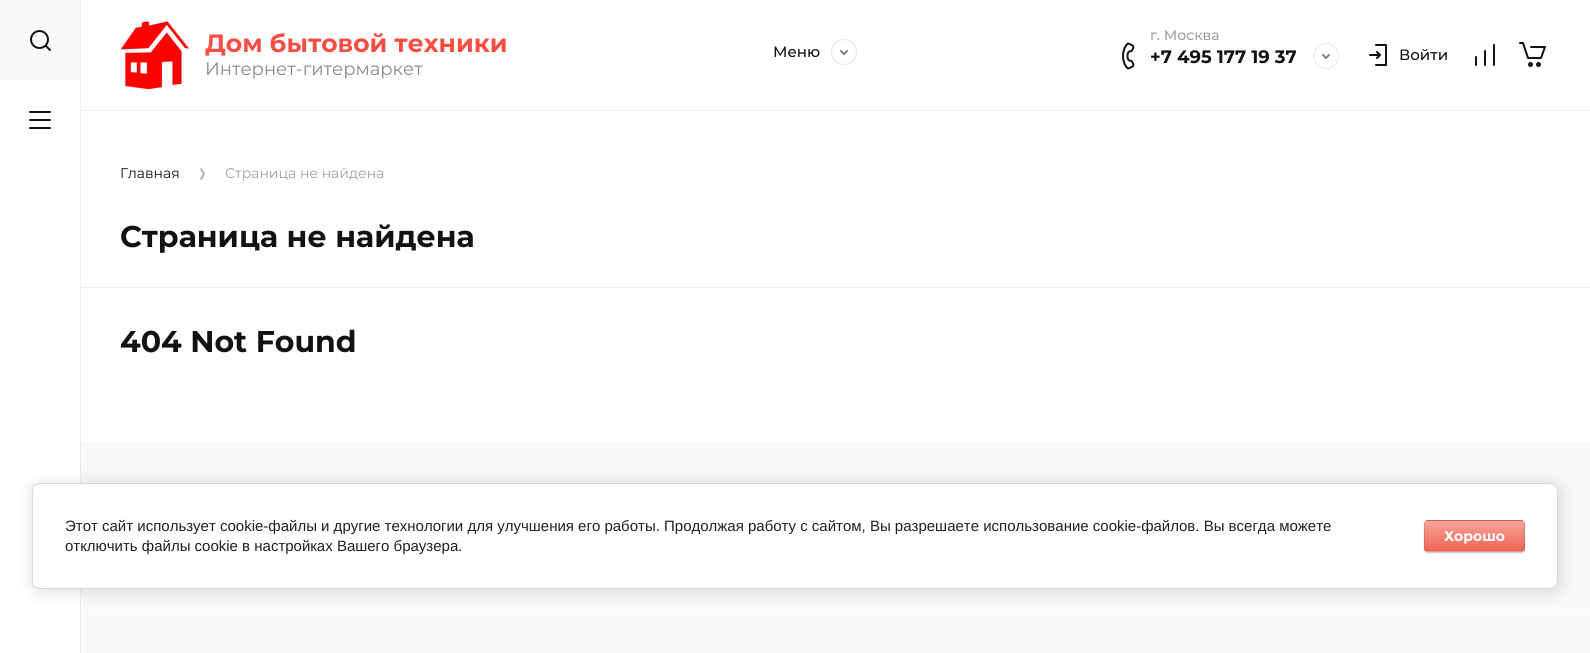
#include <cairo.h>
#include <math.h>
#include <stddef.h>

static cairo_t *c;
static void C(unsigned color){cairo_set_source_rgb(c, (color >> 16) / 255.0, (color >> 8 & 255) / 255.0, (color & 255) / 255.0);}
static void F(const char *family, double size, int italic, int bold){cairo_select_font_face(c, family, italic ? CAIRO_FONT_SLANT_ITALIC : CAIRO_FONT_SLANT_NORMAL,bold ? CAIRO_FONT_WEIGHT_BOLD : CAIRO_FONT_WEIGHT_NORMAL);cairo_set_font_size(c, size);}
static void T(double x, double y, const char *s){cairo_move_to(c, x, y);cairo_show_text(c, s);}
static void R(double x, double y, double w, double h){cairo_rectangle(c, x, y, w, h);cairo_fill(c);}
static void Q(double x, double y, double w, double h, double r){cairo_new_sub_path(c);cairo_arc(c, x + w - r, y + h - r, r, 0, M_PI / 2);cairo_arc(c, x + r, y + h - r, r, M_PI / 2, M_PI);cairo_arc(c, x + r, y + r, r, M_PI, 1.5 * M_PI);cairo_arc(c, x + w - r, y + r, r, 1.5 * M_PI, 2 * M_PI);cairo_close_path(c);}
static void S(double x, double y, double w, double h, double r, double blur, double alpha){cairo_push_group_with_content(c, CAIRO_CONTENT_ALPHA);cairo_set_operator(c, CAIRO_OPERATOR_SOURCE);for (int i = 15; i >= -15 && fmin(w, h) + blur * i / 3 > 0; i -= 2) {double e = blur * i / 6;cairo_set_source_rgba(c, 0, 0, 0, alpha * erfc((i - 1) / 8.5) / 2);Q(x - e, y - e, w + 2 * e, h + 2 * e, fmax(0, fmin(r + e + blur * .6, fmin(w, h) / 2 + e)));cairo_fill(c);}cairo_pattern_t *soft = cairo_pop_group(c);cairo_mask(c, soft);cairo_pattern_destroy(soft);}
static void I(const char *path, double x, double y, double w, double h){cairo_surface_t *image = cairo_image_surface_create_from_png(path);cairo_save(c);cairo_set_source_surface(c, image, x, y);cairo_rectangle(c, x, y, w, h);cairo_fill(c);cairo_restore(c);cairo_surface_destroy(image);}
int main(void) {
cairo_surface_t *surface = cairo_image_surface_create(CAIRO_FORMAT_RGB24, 1590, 653);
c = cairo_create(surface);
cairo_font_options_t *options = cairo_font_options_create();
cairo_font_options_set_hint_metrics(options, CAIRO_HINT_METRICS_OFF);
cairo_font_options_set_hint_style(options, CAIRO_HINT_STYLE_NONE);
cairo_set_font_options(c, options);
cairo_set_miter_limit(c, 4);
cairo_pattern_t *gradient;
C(0xffffff);
cairo_paint(c);
C(0xf0f0f0);
R(80,0,1,610);
C(0xf9f9f9);
R(0,0,80,80);
I("1.png",30,30,21,21);
I("2.png",29,111,22,18);
C(0xf0f0f0);
R(80,110,1510,1);
C(0xe2e2e2);
R(80,110,1,1);
I("3.png",120,21,69,69);
F("Montserrat",25,0,1);
C(0xf74e43);
T(205,52,"Дом бытовой техники");
F("Montserrat",18,0,0);
C(0x898989);
T(205,75,"Интернет-гитермаркет");
F("Montserrat Medium",15,0,0);
C(0x131212);
T(773,57,"Меню");
I("4.png",840,50,8,5);
cairo_arc(c,844,52,12.5,0,2 * M_PI);
C(0xe6e6e6);
cairo_set_line_width(c,1);
cairo_stroke(c);
I("5.png",1122,42,13,28);
F("Montserrat Medium",14,0,0);
C(0xa1a0a0);
T(1150,40,"г. Москва");
F("Montserrat",18,0,1);
C(0x131212);
T(1150,63,"+7 495 177 19 37");
I("4.png",1322,54,8,5);
cairo_arc(c,1326,56,12.5,0,2 * M_PI);
C(0xe6e6e6);
cairo_stroke(c);
I("6.png",1369,44,18,22);
F("Montserrat Medium",15,0,0);
C(0x131212);
T(1399,60,"Войти");
I("7.png",1475,44,20,22);
I("8.png",1519,42,27,25);
C(0xf1f1f1);
R(80,287,1510,1);
C(0xe3e3e3);
R(80,287,1,1);
F("Montserrat",14,0,0);
C(0x131212);
T(120,178,"Главная");
I("9.png",200,168,5,12);
C(0xa1a0a0);
T(225,178,"Страница не найдена");
F("Montserrat",30,0,1);
C(0x131212);
T(120,247,"Страница не найдена");
T(120,352,"404 Not Found");
C(0xf9f9f9);
R(81,442,1509,167);
C(0xeaeaea);
R(80,442,1,167);
C(0xf9f9f9);
R(81,610,1509,43);
C(0xeaeaea);
R(80,610,1,43);
C(0x000000);
S(34,485,1526,106,8,9,.14);
C(0xffffff);
Q(32.5,483.5,1525,105,7.5);
cairo_fill_preserve(c);
C(0xd6d6d6);
cairo_stroke(c);
F("Liberation Sans",15,0,0);
C(0x212121);
T(65,531,"Этот сайт использует cookie-файлы и другие технологии для улучшения его работы. Продолжая работу с сайтом, Вы разрешаете использование cookie-файлов. Вы всегда можете");
T(65,551,"отключить файлы cookie в настройках Вашего браузера.");
C(0x000000);
S(1424,521,101,32,4,.5,.2);
cairo_save(c);
Q(1424,520,101,32,4);
cairo_clip(c);
gradient = cairo_pattern_create_linear(1475,491,1475,521);
cairo_pattern_add_color_stop_rgba(gradient,0,0.965,0.639,0.604,1);
cairo_pattern_add_color_stop_rgba(gradient,1,0.941,0.388,0.329,1);
cairo_set_source(c,gradient);
cairo_pattern_destroy(gradient);
R(1424,520,101,1);
gradient = cairo_pattern_create_linear(1475,521,1475,551);
cairo_pattern_add_color_stop_rgba(gradient,0,0.965,0.639,0.604,1);
cairo_pattern_add_color_stop_rgba(gradient,1,0.941,0.388,0.329,1);
cairo_set_source(c,gradient);
cairo_pattern_destroy(gradient);
R(1424,521,101,30);
gradient = cairo_pattern_create_linear(1475,551,1475,581);
cairo_pattern_add_color_stop_rgba(gradient,0,0.965,0.639,0.604,1);
cairo_pattern_add_color_stop_rgba(gradient,1,0.941,0.388,0.329,1);
cairo_set_source(c,gradient);
cairo_pattern_destroy(gradient);
R(1424,551,101,1);
cairo_restore(c);
Q(1424.5,520.5,100,31,3.5);
cairo_set_source_rgba(c,0,0,0,0.1);
cairo_stroke(c);
F("Montserrat",14,0,1);
C(0xffffff);
T(1444,541,"Хорошо");
cairo_surface_write_to_png(surface, "o.png");
cairo_font_options_destroy(options);
cairo_destroy(c);
cairo_surface_destroy(surface);
return 0;
}
